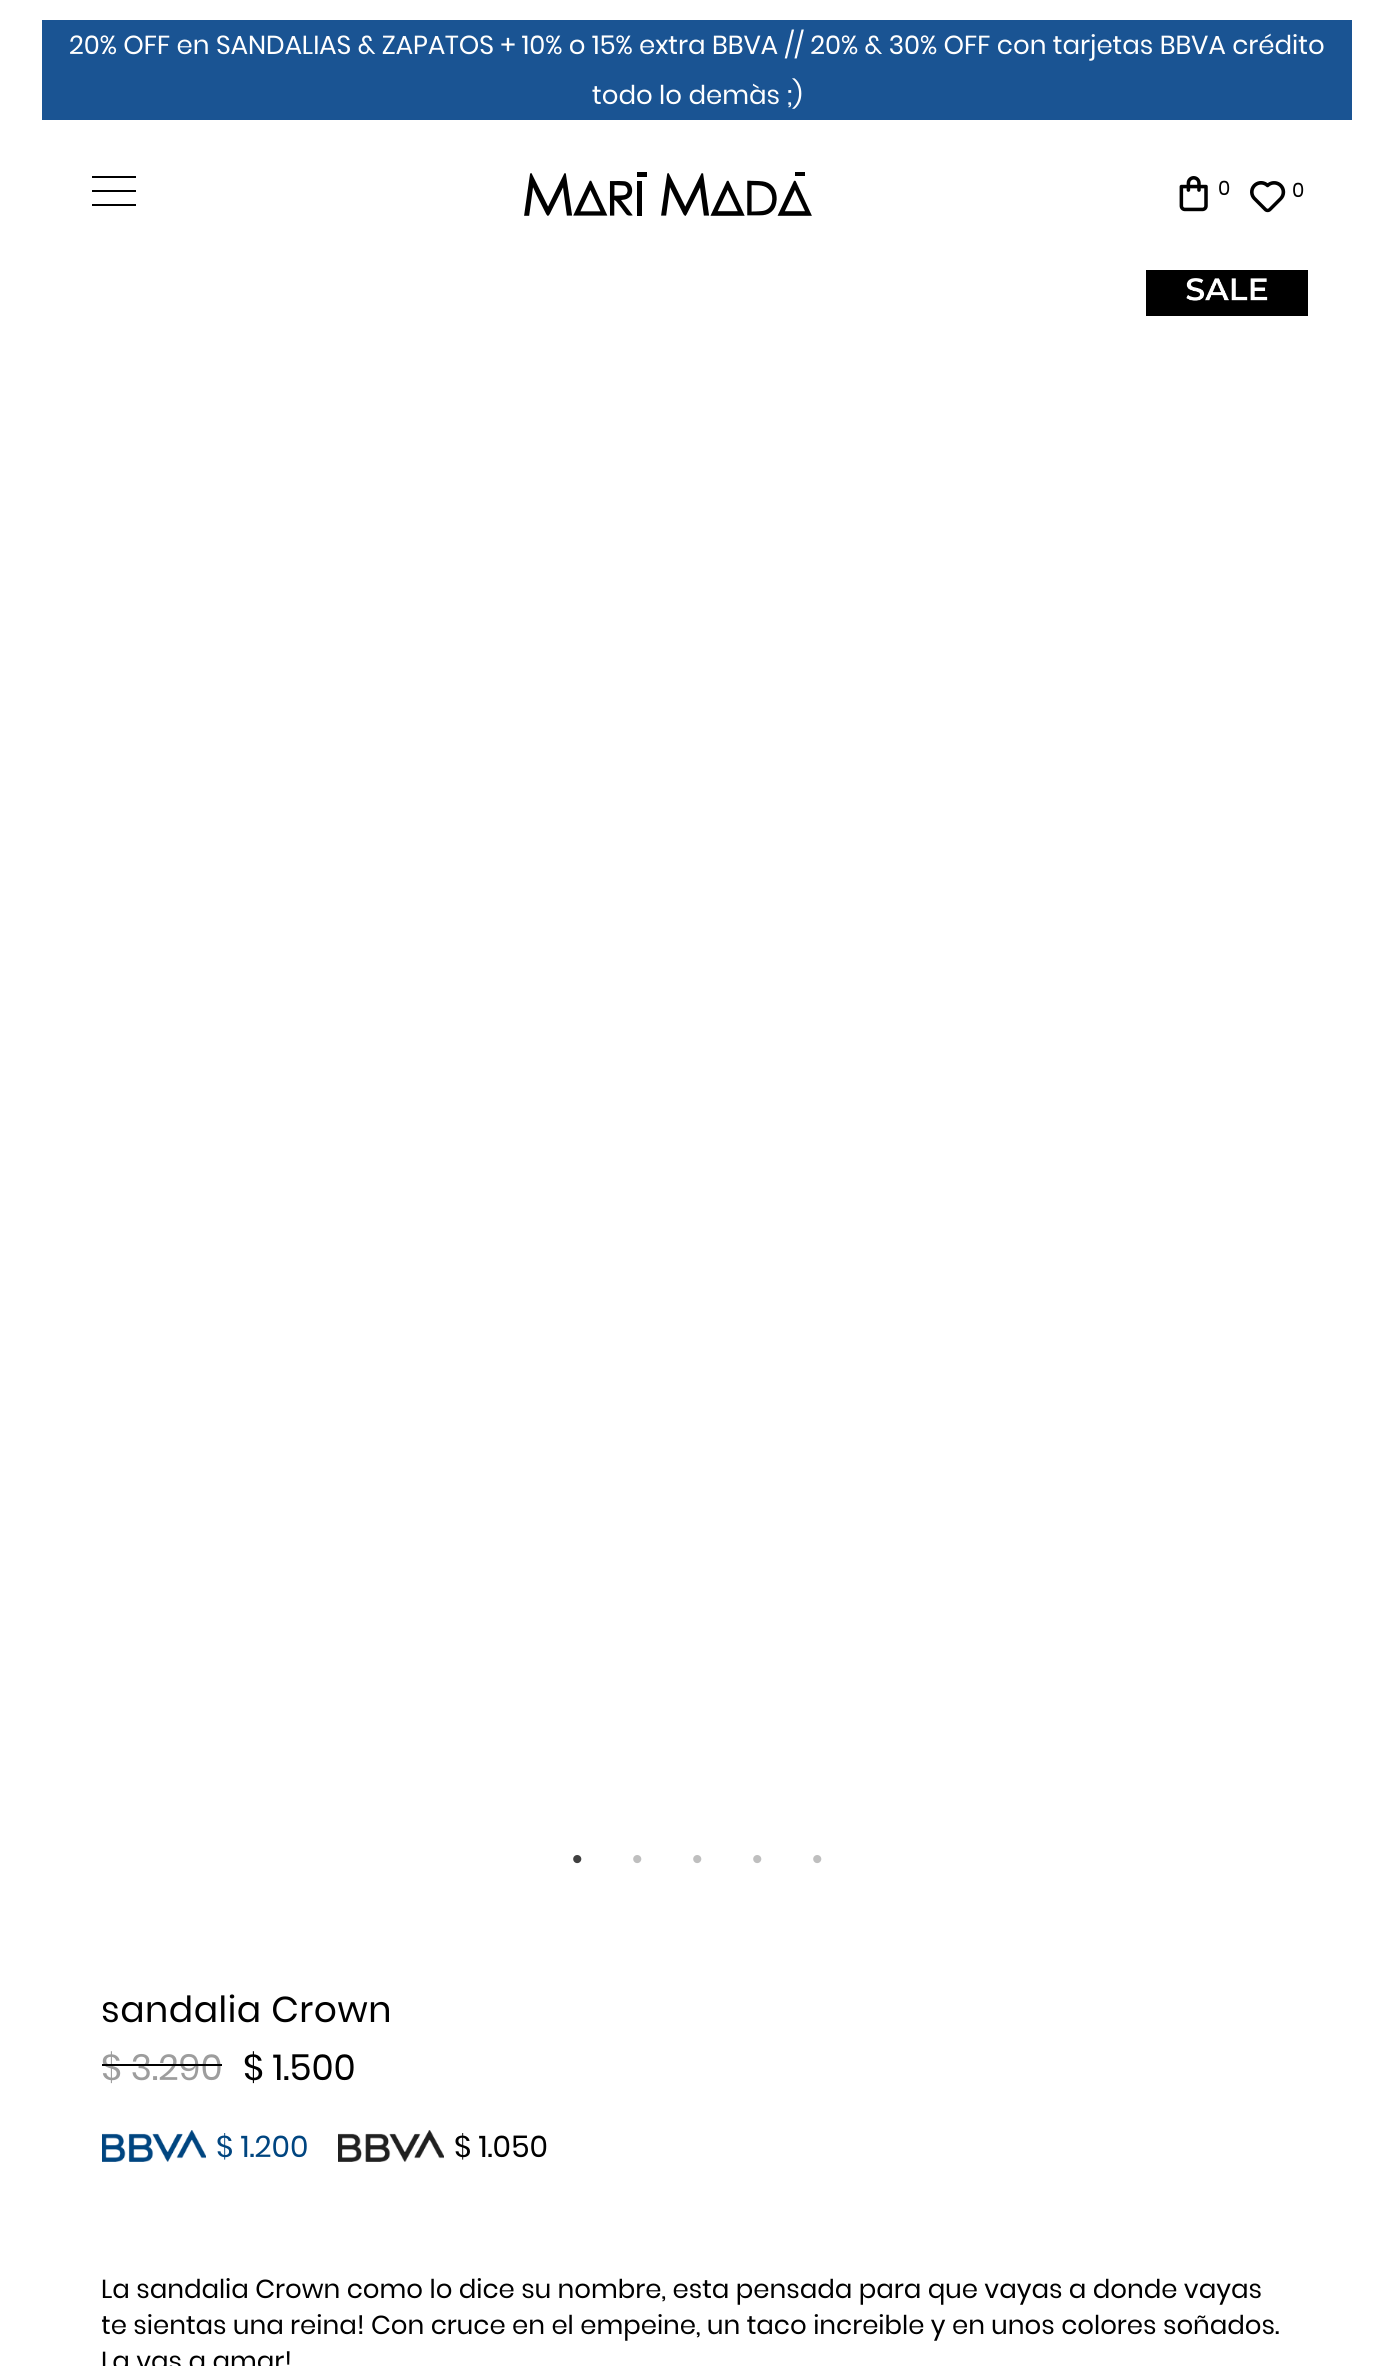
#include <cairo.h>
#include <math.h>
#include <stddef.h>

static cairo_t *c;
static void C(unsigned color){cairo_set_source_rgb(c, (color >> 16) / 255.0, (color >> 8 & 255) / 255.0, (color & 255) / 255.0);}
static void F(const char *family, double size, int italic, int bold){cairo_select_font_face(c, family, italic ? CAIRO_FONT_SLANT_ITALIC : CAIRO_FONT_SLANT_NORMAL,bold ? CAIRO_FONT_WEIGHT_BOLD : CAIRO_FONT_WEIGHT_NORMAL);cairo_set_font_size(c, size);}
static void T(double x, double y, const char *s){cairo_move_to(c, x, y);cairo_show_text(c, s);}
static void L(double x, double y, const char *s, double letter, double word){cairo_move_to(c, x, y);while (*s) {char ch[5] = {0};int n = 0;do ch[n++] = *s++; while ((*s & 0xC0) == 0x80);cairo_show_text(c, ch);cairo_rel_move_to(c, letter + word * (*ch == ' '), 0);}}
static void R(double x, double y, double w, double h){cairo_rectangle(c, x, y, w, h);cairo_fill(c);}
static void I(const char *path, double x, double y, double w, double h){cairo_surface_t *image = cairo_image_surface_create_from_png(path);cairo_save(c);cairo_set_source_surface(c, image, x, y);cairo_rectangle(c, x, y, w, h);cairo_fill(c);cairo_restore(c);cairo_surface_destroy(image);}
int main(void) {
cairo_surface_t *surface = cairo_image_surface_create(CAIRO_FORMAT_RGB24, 1393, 2366);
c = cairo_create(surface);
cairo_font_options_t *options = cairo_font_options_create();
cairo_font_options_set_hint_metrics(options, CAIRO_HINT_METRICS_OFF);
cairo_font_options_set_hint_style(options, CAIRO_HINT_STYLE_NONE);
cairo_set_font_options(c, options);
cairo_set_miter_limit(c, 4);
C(0xffffff);
cairo_paint(c);
C(0x1a5493);
R(42,20,1310,100);
F("Poppins",26,0,0);
C(0xffffff);
T(69,54,"20% OFF en SANDALIAS & ZAPATOS + 10% o 15% extra BBVA // 20% & 30% OFF con tarjetas BBVA crédito");
T(592,104,"todo lo demàs ;)");
I("1.png",524,172,288,44);
I("2.png",1179,176,29,36);
F("Poppins",20,0,0);
C(0x000000);
T(1218,195,"0");
I("3.png",1250,181,36,32);
T(1292,197,"0");
R(92,176,44,2);
R(92,190,44,2);
R(92,204,44,2);
I("4.png",1146,270,162,46);
F("Liberation Sans",30,0,0);
C(0x404040);
T(572,1869,"•");
C(0xbfbfbf);
T(632,1869,"•");
T(692,1869,"•");
T(752,1869,"•");
T(812,1869,"•");
F("Poppins",36,0,0);
C(0x000000);
L(101,2022,"sandalia Crown",.6,0);
C(0x9d9d9d);
T(101,2080,"$ 3.290");
C(0x000000);
R(102,2064,120,2);
T(243,2080,"$ 1.500");
I("5.png",102,2130,104,32);
F("Poppins",30,0,0);
C(0x004580);
T(216,2157,"$ 1.200");
I("6.png",338,2130,106,32);
C(0x000000);
T(454,2157,"$ 1.050");
F("Poppins",26,0,0);
T(101,2298,"La sandalia Crown como lo dice su nombre, esta pensada para que vayas a donde vayas");
cairo_save(c);
cairo_rectangle(c,102,2272,1190,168);
cairo_clip(c);
T(101,2334,"te sientas una reina! Con cruce en el empeine, un taco increible y en unos colores soñados.");
cairo_restore(c);
T(101,2370,"La vas a amar!");
cairo_surface_write_to_png(surface, "o.png");
cairo_font_options_destroy(options);
cairo_destroy(c);
cairo_surface_destroy(surface);
return 0;
}
